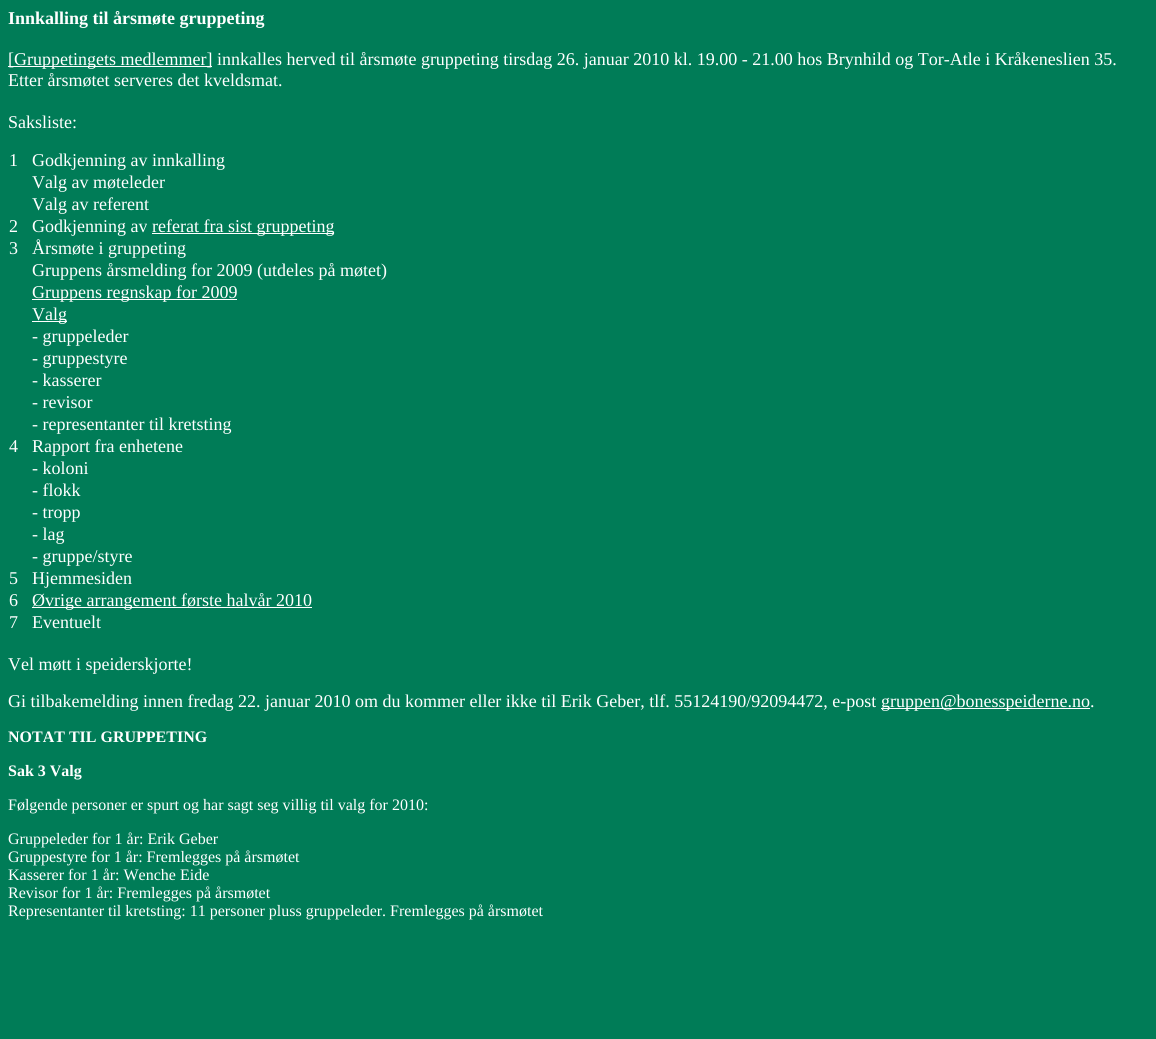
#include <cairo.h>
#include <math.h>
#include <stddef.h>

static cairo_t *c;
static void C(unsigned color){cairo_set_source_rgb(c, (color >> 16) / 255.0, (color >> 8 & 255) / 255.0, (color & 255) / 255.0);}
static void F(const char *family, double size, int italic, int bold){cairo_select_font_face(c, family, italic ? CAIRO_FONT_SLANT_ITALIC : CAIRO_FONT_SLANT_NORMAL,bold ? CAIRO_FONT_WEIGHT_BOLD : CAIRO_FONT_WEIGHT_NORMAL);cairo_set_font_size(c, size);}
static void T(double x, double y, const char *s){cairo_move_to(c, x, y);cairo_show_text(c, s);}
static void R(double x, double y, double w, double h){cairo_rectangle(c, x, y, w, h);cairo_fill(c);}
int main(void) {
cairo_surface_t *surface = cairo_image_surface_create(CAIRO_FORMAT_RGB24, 1156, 1039);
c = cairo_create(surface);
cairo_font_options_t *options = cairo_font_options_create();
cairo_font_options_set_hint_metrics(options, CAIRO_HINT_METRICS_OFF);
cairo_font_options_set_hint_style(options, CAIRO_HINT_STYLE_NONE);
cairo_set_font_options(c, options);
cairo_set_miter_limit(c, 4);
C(0x007c57);
cairo_paint(c);
F("Liberation Serif",18,0,1);
C(0xffffff);
T(8,24,"Innkalling til årsmøte gruppeting");
R(8,66,204,1);
F("Liberation Serif",18,0,0);
T(8,65,"[Gruppetingets medlemmer] innkalles herved til årsmøte gruppeting tirsdag 26. januar 2010 kl. 19.00 - 21.00 hos Brynhild og Tor-Atle i Kråkeneslien 35.");
T(8,86,"Etter årsmøtet serveres det kveldsmat.");
T(8,128,"Saksliste:");
T(9,166,"1");
T(32,166,"Godkjenning av innkalling");
T(32,188,"Valg av møteleder");
T(32,210,"Valg av referent");
T(9,232,"2");
T(32,232,"Godkjenning av");
R(152,233,182,1);
T(152,232,"referat fra sist gruppeting");
T(9,254,"3");
T(32,254,"Årsmøte i gruppeting");
T(32,276,"Gruppens årsmelding for 2009 (utdeles på møtet)");
R(32,299,205,1);
T(32,298,"Gruppens regnskap for 2009");
R(32,321,35,1);
T(32,320,"Valg");
T(32,342,"- gruppeleder");
T(32,364,"- gruppestyre");
T(32,386,"- kasserer");
T(32,408,"- revisor");
T(32,430,"- representanter til kretsting");
T(9,452,"4");
T(32,452,"Rapport fra enhetene");
T(32,474,"- koloni");
T(32,496,"- flokk");
T(32,518,"- tropp");
T(32,540,"- lag");
T(32,562,"- gruppe/styre");
T(9,584,"5");
T(32,584,"Hjemmesiden");
T(9,606,"6");
R(32,607,280,1);
T(32,606,"Øvrige arrangement første halvår 2010");
T(9,628,"7");
T(32,628,"Eventuelt");
T(8,670,"Vel møtt i speiderskjorte!");
T(8,707,"Gi tilbakemelding innen fredag 22. januar 2010 om du kommer eller ikke til Erik Geber, tlf. 55124190/92094472, e-post");
R(881,708,209,1);
T(881,707,"gruppen@bonesspeiderne.no.");
F("Liberation Serif",16,0,1);
T(8,742,"NOTAT TIL GRUPPETING");
T(8,776,"Sak 3 Valg");
F("Liberation Serif",16,0,0);
T(8,810,"Følgende personer er spurt og har sagt seg villig til valg for 2010:");
T(8,844,"Gruppeleder for 1 år: Erik Geber");
T(8,862,"Gruppestyre for 1 år: Fremlegges på årsmøtet");
T(8,880,"Kasserer for 1 år: Wenche Eide");
T(8,898,"Revisor for 1 år: Fremlegges på årsmøtet");
T(8,916,"Representanter til kretsting: 11 personer pluss gruppeleder. Fremlegges på årsmøtet");
cairo_surface_write_to_png(surface, "o.png");
cairo_font_options_destroy(options);
cairo_destroy(c);
cairo_surface_destroy(surface);
return 0;
}
